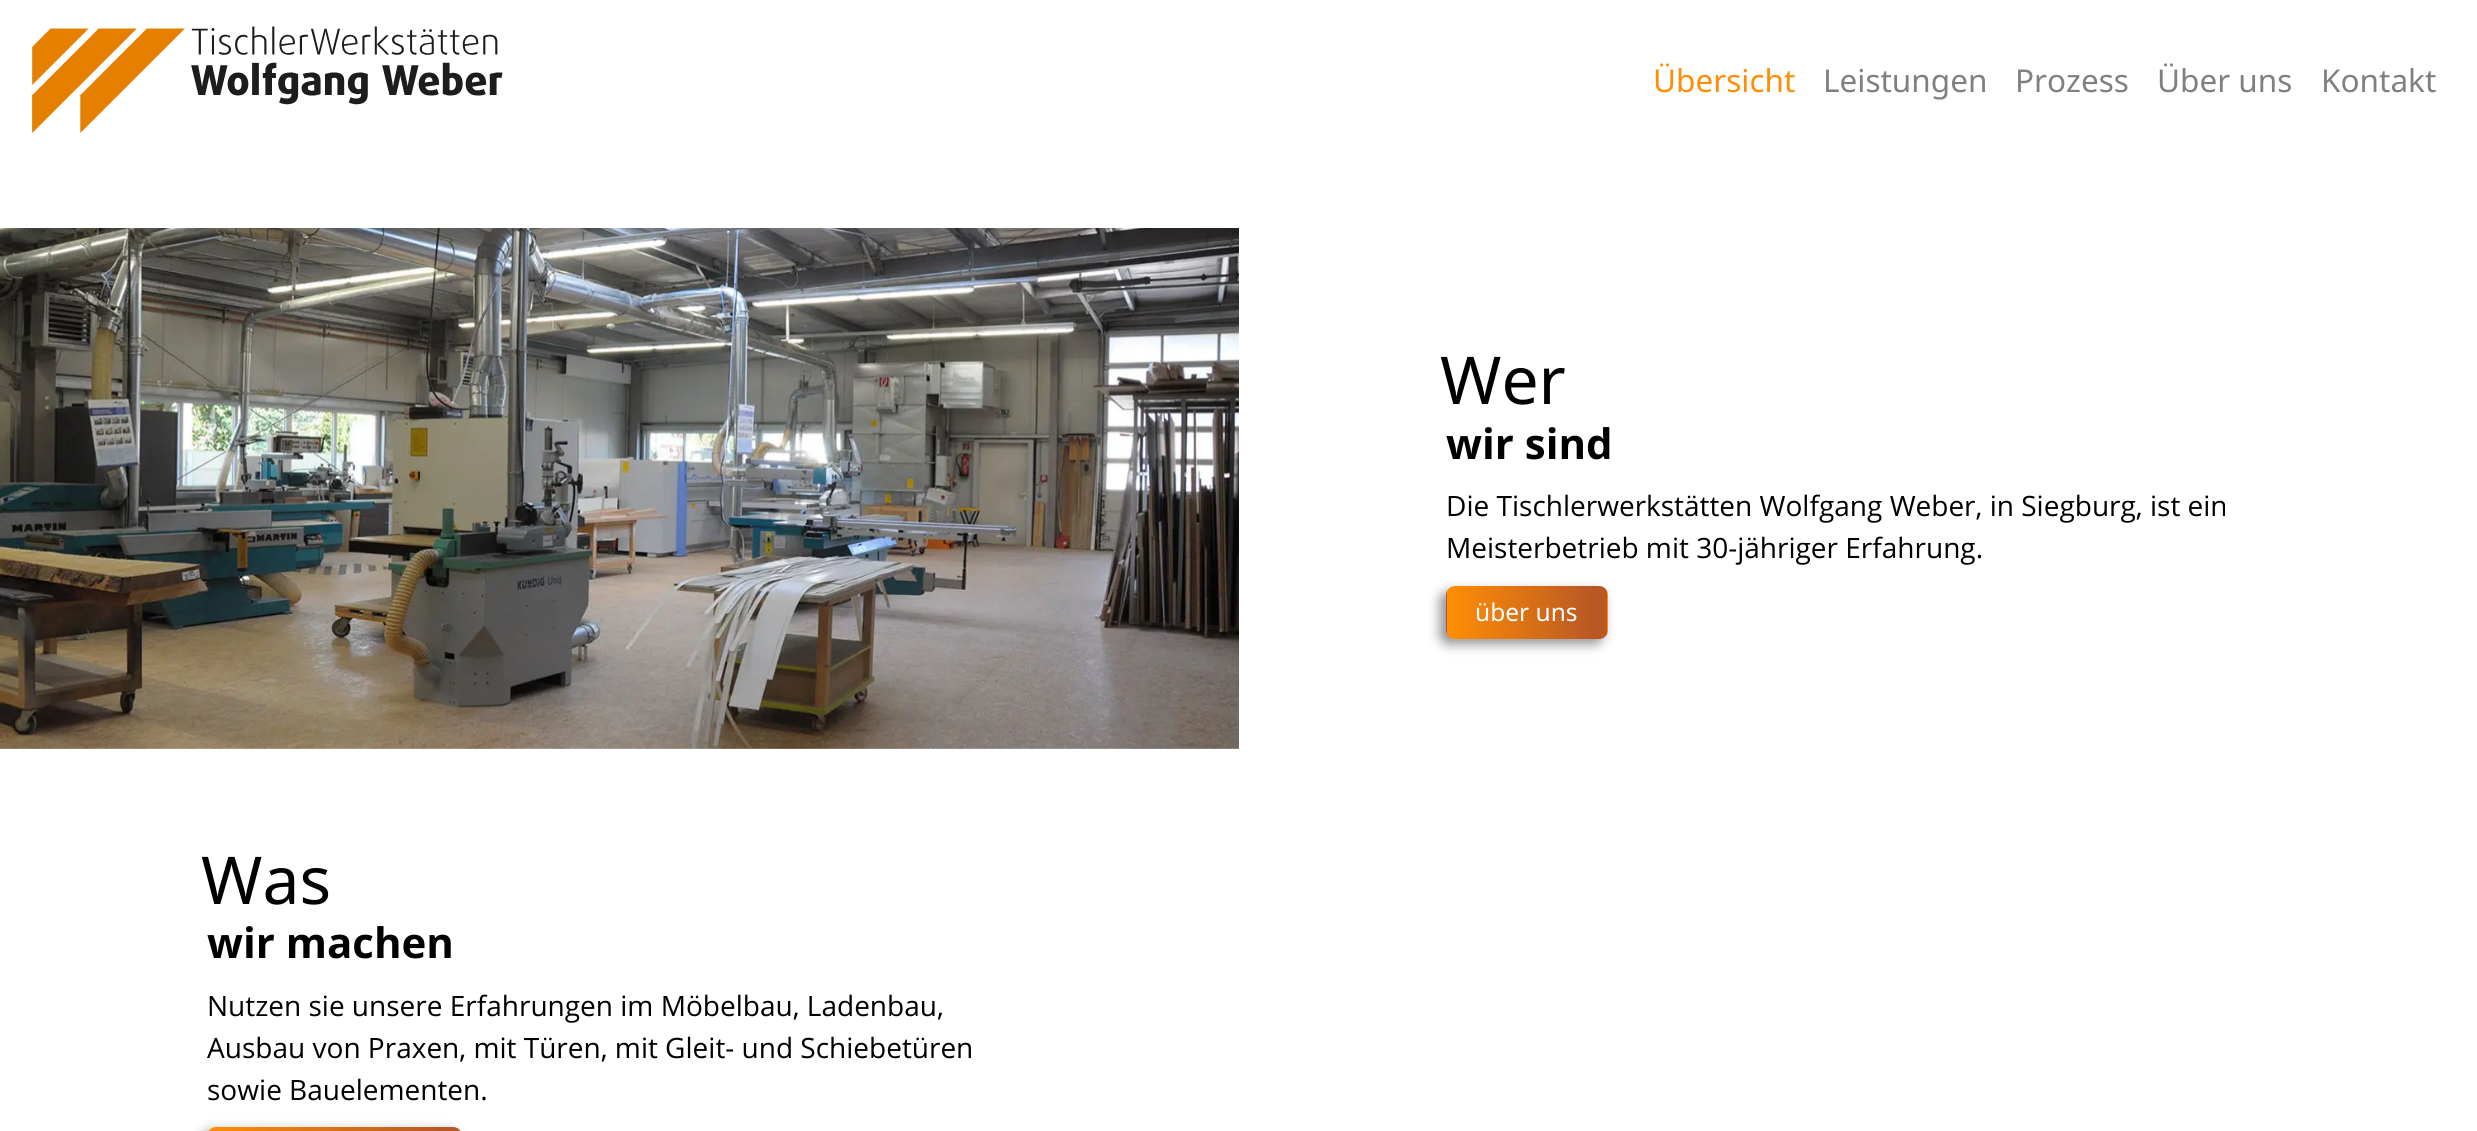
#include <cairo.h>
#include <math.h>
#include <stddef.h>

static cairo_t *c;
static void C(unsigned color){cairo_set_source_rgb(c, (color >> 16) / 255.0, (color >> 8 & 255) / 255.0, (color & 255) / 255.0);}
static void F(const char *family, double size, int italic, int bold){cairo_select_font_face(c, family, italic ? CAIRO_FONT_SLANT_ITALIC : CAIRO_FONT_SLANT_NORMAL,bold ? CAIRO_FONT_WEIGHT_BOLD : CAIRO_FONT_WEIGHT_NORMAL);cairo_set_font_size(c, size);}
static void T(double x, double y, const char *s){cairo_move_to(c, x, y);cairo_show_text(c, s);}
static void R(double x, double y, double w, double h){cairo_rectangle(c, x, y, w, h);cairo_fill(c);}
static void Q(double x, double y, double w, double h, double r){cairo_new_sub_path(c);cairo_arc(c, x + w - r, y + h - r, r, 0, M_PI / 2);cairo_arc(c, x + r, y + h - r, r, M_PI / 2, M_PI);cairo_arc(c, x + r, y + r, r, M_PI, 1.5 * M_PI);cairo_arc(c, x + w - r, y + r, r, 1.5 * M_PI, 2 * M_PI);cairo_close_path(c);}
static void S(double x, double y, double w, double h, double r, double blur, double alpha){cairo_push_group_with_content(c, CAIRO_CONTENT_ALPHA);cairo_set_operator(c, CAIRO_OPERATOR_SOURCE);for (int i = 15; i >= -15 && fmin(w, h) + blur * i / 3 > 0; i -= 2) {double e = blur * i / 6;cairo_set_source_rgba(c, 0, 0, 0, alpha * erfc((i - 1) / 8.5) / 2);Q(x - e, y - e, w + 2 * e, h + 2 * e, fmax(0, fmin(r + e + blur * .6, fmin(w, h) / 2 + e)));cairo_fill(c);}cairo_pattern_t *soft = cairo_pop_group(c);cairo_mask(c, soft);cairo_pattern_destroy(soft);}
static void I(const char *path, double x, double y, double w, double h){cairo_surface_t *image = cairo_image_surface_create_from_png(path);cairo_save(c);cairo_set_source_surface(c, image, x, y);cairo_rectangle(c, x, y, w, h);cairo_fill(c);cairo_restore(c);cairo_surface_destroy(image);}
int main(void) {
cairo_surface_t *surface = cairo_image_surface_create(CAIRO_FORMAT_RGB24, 2477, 1131);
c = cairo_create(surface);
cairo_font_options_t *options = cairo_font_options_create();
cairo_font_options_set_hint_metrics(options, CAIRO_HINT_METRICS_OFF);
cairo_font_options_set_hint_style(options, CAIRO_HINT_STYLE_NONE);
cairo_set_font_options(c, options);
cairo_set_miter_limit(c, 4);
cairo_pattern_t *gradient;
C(0xffffff);
cairo_paint(c);
I("1.png",31,26,472,107);
F("Noto Sans",31.5,0,0);
C(0xff8e05);
T(1653,92,"Übersicht");
C(0x808080);
T(1823,92,"Leistungen");
T(2015,92,"Prozess");
T(2157,92,"Über uns");
T(2321,92,"Kontakt");
I("2.png",0,228,1239,521);
F("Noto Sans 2",66,0,0);
C(0x000000);
T(1440,404,"Wer");
F("Noto Sans",42,0,1);
T(1446,459,"wir sind");
F("Open Sans",28,0,0);
T(1446,516,"Die Tischlerwerkstätten Wolfgang Weber, in Siegburg, ist ein");
T(1446,558,"Meisterbetrieb mit 30-jähriger Erfahrung.");
C(0x919191);
S(1440,592,163,52,9,6,1);
cairo_save(c);
Q(1446,586,162,53,9);
cairo_clip(c);
gradient = cairo_pattern_create_linear(1288,613,1447,613);
cairo_pattern_add_color_stop_rgba(gradient,.01,1,0.557,0.02,1);
cairo_pattern_add_color_stop_rgba(gradient,.93,0.725,0.341,0.145,1);
cairo_set_source(c,gradient);
cairo_pattern_destroy(gradient);
R(1446,586,1,53);
gradient = cairo_pattern_create_linear(1447,613,1607,613);
cairo_pattern_add_color_stop_rgba(gradient,.01,1,0.557,0.02,1);
cairo_pattern_add_color_stop_rgba(gradient,.93,0.725,0.341,0.145,1);
cairo_set_source(c,gradient);
cairo_pattern_destroy(gradient);
R(1447,586,160,53);
gradient = cairo_pattern_create_linear(1607,613,1766,613);
cairo_pattern_add_color_stop_rgba(gradient,.01,1,0.557,0.02,1);
cairo_pattern_add_color_stop_rgba(gradient,.93,0.725,0.341,0.145,1);
cairo_set_source(c,gradient);
cairo_pattern_destroy(gradient);
R(1607,586,1,53);
cairo_restore(c);
F("Noto Sans 2",24.5,0,0);
C(0xffffff);
T(1475,621,"über uns");
F("Noto Sans 2",66,0,0);
C(0x000000);
T(201,904,"Was");
F("Noto Sans",42,0,1);
T(207,958,"wir machen");
F("Open Sans",28,0,0);
T(207,1016,"Nutzen sie unsere Erfahrungen im Möbelbau, Ladenbau,");
T(207,1058,"Ausbau von Praxen, mit Türen, mit Gleit- und Schiebetüren");
T(207,1100,"sowie Bauelementen.");
C(0x919191);
S(201,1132,256,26,9,6,1);
cairo_save(c);
Q(207,1127,255,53,9);
cairo_clip(c);
gradient = cairo_pattern_create_linear(208,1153,460,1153);
cairo_pattern_add_color_stop_rgba(gradient,.01,1,0.557,0.02,1);
cairo_pattern_add_color_stop_rgba(gradient,.93,0.725,0.341,0.145,1);
cairo_set_source(c,gradient);
cairo_pattern_destroy(gradient);
R(208,1127,252,4);
gradient = cairo_pattern_create_linear(460,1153,712,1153);
cairo_pattern_add_color_stop_rgba(gradient,.01,1,0.557,0.02,1);
cairo_pattern_add_color_stop_rgba(gradient,.93,0.725,0.341,0.145,1);
cairo_set_source(c,gradient);
cairo_pattern_destroy(gradient);
R(460,1127,1,4);
cairo_restore(c);
cairo_surface_write_to_png(surface, "o.png");
cairo_font_options_destroy(options);
cairo_destroy(c);
cairo_surface_destroy(surface);
return 0;
}
